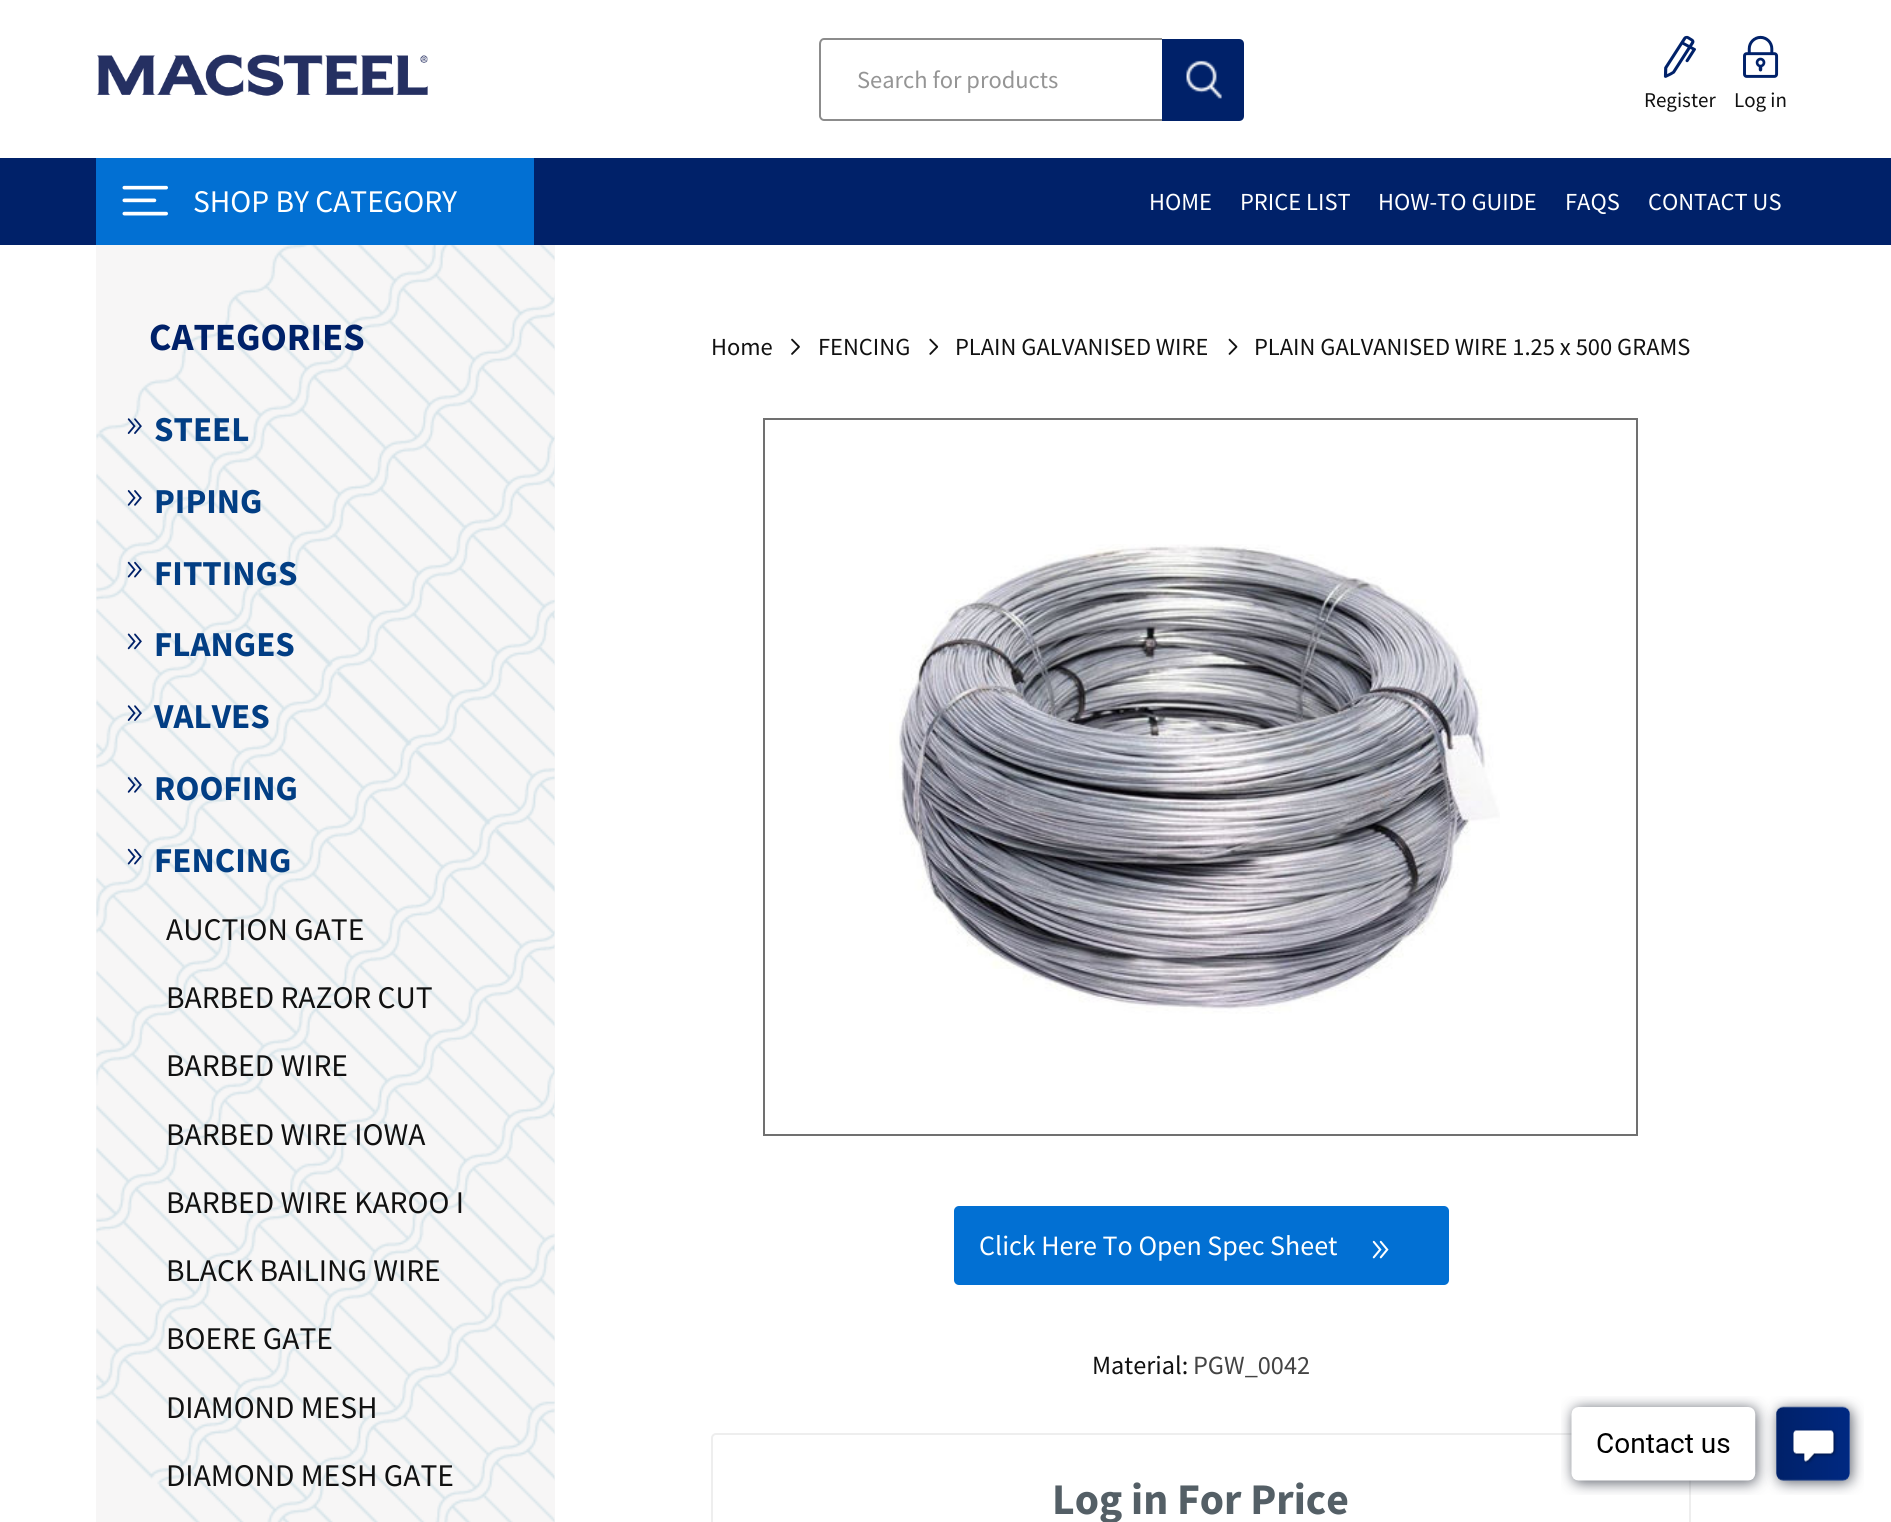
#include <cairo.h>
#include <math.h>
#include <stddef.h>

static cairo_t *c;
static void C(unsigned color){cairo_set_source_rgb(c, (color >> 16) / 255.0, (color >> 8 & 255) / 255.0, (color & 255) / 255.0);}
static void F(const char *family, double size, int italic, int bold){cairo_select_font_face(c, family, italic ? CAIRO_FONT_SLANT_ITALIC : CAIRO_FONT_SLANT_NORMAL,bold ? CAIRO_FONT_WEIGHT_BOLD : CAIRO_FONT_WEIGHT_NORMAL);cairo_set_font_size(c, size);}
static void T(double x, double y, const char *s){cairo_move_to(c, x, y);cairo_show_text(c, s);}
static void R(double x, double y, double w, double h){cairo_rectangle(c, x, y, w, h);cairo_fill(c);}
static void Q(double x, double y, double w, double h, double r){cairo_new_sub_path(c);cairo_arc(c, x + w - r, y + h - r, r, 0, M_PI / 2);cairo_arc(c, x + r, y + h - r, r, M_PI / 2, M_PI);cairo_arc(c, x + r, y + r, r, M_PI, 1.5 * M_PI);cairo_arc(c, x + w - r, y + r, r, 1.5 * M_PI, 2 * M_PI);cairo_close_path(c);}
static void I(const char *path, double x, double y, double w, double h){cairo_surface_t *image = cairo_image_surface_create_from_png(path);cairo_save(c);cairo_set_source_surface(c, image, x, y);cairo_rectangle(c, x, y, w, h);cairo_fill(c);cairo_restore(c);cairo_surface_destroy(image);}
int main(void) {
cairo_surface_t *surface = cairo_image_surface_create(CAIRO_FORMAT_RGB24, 1891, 1522);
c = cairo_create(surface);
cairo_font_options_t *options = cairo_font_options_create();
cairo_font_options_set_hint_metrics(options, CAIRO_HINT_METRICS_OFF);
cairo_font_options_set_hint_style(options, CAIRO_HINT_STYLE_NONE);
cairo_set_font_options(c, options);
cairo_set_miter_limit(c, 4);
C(0xffffff);
cairo_paint(c);
I("1.png",96,54,332,42);
C(0x8c8c8c);
cairo_set_fill_rule(c,CAIRO_FILL_RULE_EVEN_ODD);
cairo_new_path(c);
cairo_move_to(c,824,38);
cairo_line_to(c,1162,38);
cairo_line_to(c,1162,121);
cairo_line_to(c,824,121);
cairo_curve_to(c,821,121,819,118,819,116);
cairo_line_to(c,819,44);
cairo_curve_to(c,819,41,821,38,824,38);
cairo_close_path(c);
cairo_move_to(c,824,40);
cairo_line_to(c,1162,40);
cairo_line_to(c,1162,119);
cairo_line_to(c,824,119);
cairo_curve_to(c,822,119,821,117,821,116);
cairo_line_to(c,821,44);
cairo_curve_to(c,821,42,822,40,824,40);
cairo_close_path(c);
cairo_fill(c);
F("Source Sans Pro",24.5,0,0);
C(0x959595);
T(857,88,"Search for products");
C(0x002169);
cairo_new_path(c);
cairo_move_to(c,1162,39);
cairo_line_to(c,1239,39);
cairo_curve_to(c,1242,39,1244,41,1244,44);
cairo_line_to(c,1244,116);
cairo_curve_to(c,1244,119,1242,121,1239,121);
cairo_line_to(c,1162,121);
cairo_close_path(c);
cairo_fill(c);
I("2.png",1186,60,36,39);
I("3.png",1663,35,33,43);
F("Source Sans Pro",21,0,0);
C(0x111111);
T(1644,107,"Register");
I("4.png",1743,35,36,43);
T(1734,107,"Log in");
C(0x002169);
R(0,158,1891,87);
C(0x0270d3);
R(96,158,438,87);
I("5.png",122,185,46,31);
F("Source Sans Pro",31.5,0,0);
C(0xffffff);
T(193,212,"SHOP BY CATEGORY");
F("Source Sans Pro",24.5,0,0);
T(1149,210,"HOME");
T(1240,210,"PRICE LIST");
T(1378,210,"HOW-TO GUIDE");
T(1565,210,"FAQS");
T(1648,210,"CONTACT US");
C(0xf7f6f6);
R(96,245,459,1277);
I("6.png",96,245,459,1277);
F("Source Sans Pro",38.5,0,1);
C(0x002169);
T(149,350,"CATEGORIES");
I("7.png",127,418,15,16);
F("Source Sans Pro",35,0,1);
C(0x023e84);
T(154,441,"STEEL");
I("8.png",127,490,15,16);
T(154,513,"PIPING");
I("9.png",127,561,15,17);
T(154,585,"FITTINGS");
I("10.png",127,633,15,17);
T(154,656,"FLANGES");
I("11.png",127,705,15,16);
T(154,728,"VALVES");
I("12.png",127,777,15,16);
T(154,800,"ROOFING");
I("13.png",127,848,15,17);
T(154,872,"FENCING");
F("Source Sans Pro",31.5,0,0);
C(0x111111);
T(166,940,"AUCTION GATE");
T(166,1008,"BARBED RAZOR CUT");
T(166,1076,"BARBED WIRE");
T(166,1145,"BARBED WIRE IOWA");
T(166,1213,"BARBED WIRE KAROO I");
T(166,1281,"BLACK BAILING WIRE");
T(166,1349,"BOERE GATE");
T(166,1418,"DIAMOND MESH");
T(166,1486,"DIAMOND MESH GATE");
F("Source Sans Pro",24.5,0,0);
T(711,355,"Home");
I("14.png",791,338,9,17);
T(818,355,"FENCING");
I("15.png",929,338,10,17);
T(955,355,"PLAIN GALVANISED WIRE");
I("16.png",1228,338,10,17);
T(1254,355,"PLAIN GALVANISED WIRE 1.25 x 500 GRAMS");
cairo_rectangle(c,764,419,873,716);
C(0x707070);
cairo_stroke(c);
I("17.png",889,544,611,470);
C(0x0270d3);
Q(954,1206,495,79,5);
cairo_fill(c);
F("Source Sans Pro",28,0,0);
C(0xffffff);
T(979,1255,"Click Here To Open Spec Sheet");
I("18.png",1372,1240,17,19);
F("Source Sans Pro",26.25,0,0);
C(0x111111);
T(1092,1374,"Material:");
C(0x444444);
T(1193,1374,"PGW_0042");
Q(712,1434,978,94,4);
C(0xeeeeee);
cairo_stroke(c);
F("Source Sans Pro",43.75,0,1);
C(0x545f66);
T(1052,1514,"Log in For Price");
I("19.png",1561,1396,303,99);
cairo_surface_write_to_png(surface, "o.png");
cairo_font_options_destroy(options);
cairo_destroy(c);
cairo_surface_destroy(surface);
return 0;
}
